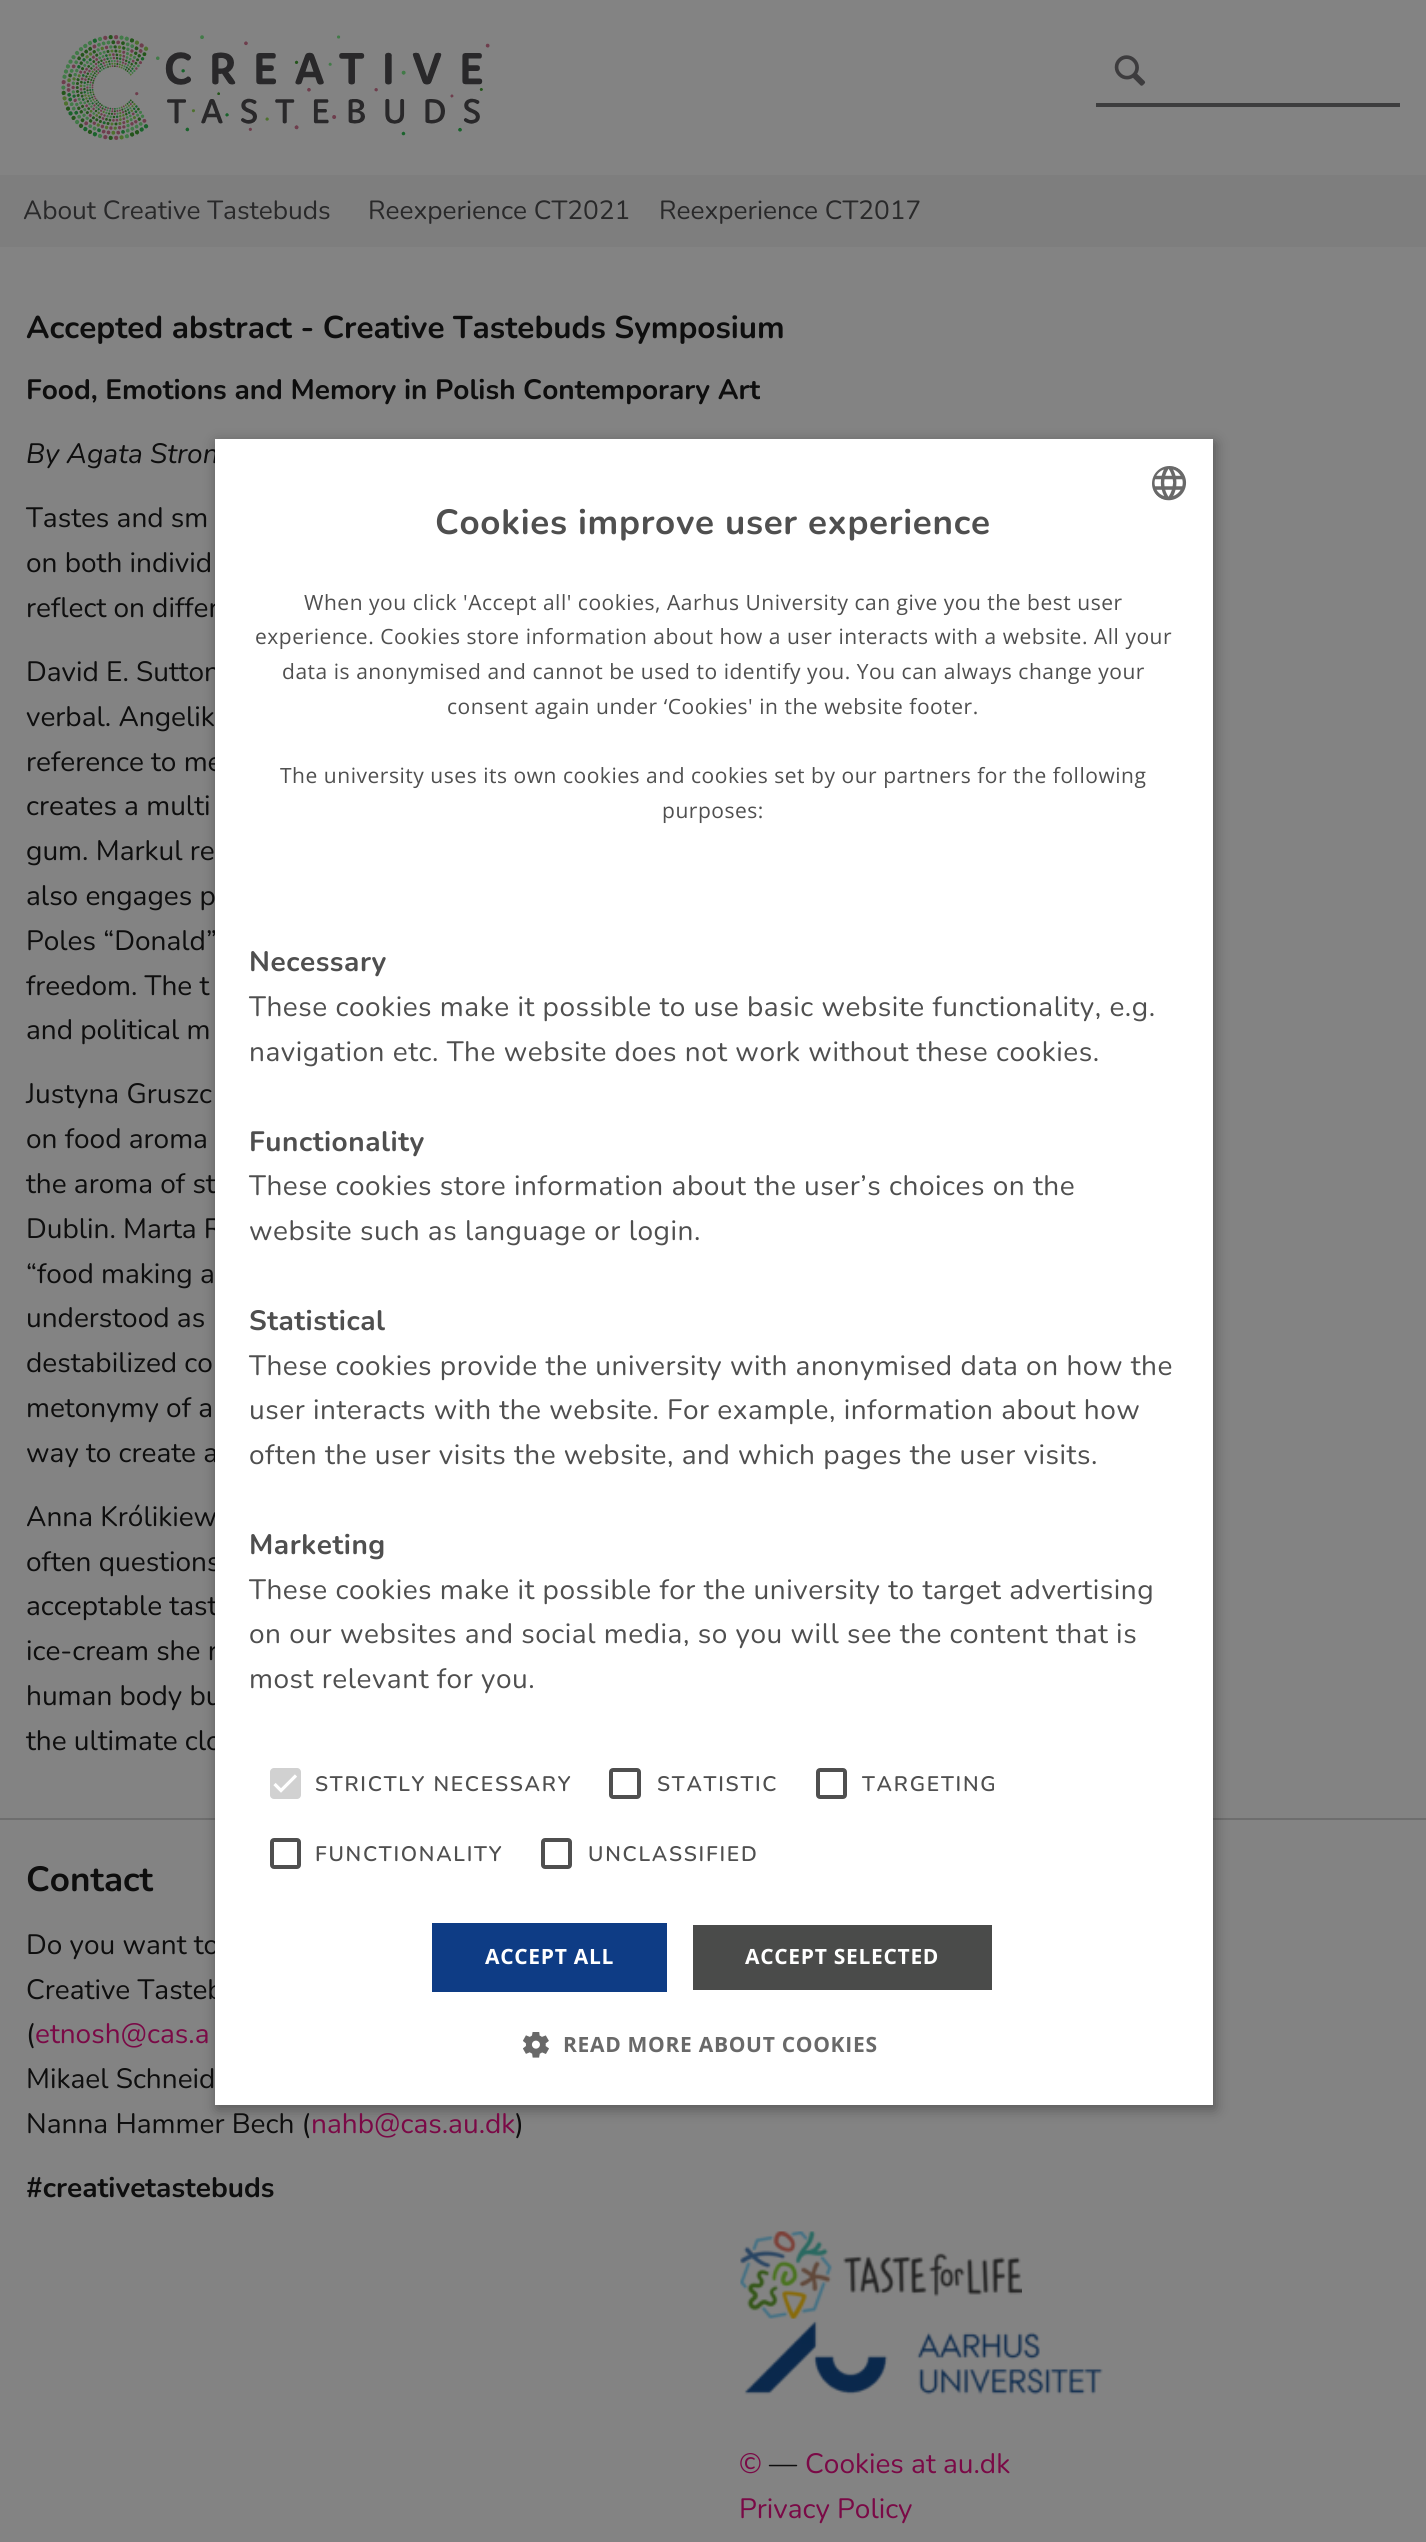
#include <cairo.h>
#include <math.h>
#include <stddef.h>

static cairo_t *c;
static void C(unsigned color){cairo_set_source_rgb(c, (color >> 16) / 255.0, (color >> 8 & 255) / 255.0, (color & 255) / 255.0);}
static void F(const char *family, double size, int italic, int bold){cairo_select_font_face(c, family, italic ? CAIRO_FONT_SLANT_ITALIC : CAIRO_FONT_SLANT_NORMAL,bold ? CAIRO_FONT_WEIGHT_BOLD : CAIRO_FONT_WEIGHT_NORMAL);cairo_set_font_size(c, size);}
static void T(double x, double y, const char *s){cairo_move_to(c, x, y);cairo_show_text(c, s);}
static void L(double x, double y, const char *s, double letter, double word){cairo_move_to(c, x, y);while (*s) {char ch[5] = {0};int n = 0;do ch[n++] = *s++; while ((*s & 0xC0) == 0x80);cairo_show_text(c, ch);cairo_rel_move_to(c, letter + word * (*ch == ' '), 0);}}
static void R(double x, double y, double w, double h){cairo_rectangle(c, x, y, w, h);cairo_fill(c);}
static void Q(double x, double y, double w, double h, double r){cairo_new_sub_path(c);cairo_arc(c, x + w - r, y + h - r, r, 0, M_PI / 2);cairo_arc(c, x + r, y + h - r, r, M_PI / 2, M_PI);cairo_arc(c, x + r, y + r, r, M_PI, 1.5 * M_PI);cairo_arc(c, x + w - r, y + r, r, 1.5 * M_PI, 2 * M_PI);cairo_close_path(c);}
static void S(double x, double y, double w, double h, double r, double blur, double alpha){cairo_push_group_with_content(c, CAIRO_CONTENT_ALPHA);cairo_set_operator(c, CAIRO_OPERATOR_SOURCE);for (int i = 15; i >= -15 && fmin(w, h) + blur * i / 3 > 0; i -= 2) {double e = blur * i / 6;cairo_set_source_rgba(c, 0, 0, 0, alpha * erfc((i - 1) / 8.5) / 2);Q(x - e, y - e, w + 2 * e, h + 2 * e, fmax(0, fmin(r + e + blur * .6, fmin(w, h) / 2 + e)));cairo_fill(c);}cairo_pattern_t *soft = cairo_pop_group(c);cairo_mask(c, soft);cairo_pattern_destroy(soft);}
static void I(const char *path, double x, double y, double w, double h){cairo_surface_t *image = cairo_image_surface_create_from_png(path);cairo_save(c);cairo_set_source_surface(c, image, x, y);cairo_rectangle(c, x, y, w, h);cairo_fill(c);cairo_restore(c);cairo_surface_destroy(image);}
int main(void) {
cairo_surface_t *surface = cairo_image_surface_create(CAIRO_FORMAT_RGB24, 1426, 2542);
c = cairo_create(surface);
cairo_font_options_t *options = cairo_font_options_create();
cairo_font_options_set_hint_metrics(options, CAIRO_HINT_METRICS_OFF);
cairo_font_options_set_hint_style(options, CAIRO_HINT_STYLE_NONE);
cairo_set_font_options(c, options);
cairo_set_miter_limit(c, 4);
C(0x838383);
cairo_paint(c);
I("1.png",61,35,429,105);
I("2.png",1114,55,32,31);
C(0x3d3d3e);
R(1096,103,304,4);
C(0x7e7e7e);
R(0,175,1426,72);
F("Nunito",26.25,0,0);
C(0x29292a);
T(23,219,"About Creative Tastebuds");
T(368,219,"Reexperience CT2021");
T(659,219,"Reexperience CT2017");
F("Nunito",31.5,0,1);
C(0x0e0e0e);
T(26,338,"Accepted abstract - Creative Tastebuds Symposium");
F("Nunito",28,0,1);
T(26,399,"Food, Emotions and Memory in Polish Contemporary Art");
F("Nunito",28,1,0);
T(26,463,"By Agata Stron");
F("Nunito",28,0,0);
T(26,527,"Tastes and sm");
T(26,572,"on both individ");
T(26,617,"reflect on differ");
T(26,681,"David E. Sutton");
T(26,726,"verbal. Angelik");
T(26,771,"reference to me");
T(26,815,"creates a multi");
T(26,860,"gum. Markul re");
T(26,905,"also engages p");
T(26,950,"Poles “Donald”");
T(26,995,"freedom. The t");
T(26,1039,"and political m");
T(26,1103,"Justyna Gruszc");
T(26,1148,"on food aroma");
T(26,1193,"the aroma of st");
T(26,1238,"Dublin. Marta R");
T(26,1283,"“food making a");
T(26,1327,"understood as");
T(26,1372,"destabilized co");
T(26,1417,"metonymy of a");
T(26,1462,"way to create a");
T(26,1526,"Anna Królikiew");
T(26,1571,"often questions");
T(26,1615,"acceptable tast");
T(26,1660,"ice-cream she r");
T(26,1705,"human body bu");
T(26,1750,"the ultimate clo");
C(0x6e6e6e);
R(0,1818,1426,2);
C(0x000000);
S(217,443,998,1666,0,7,.35);
C(0x0e0e0e);
T(26,1954,"Do you want to");
T(26,1999,"Creative Tasteb");
C(0xffffff);
R(215,439,998,1666);
I("3.png",1152,466,35,35);
F("Nunito",35,0,1);
C(0x4f4f4f);
L(435,534,"Cookies improve user experience",.7,0);
F("Open Sans",21,0,0);
L(304,610,"When you click 'Accept all' cookies, Aarhus University can give you the best user",.53,0);
L(255,644,"experience. Cookies store information about how a user interacts with a website. All your",.53,0);
L(282,679,"data is anonymised and cannot be used to identify you. You can always change your",.53,0);
L(447,714,"consent again under ‘Cookies' in the website footer.",.53,0);
L(280,783,"The university uses its own cookies and cookies set by our partners for the following",.53,0);
L(662,818,"purposes:",.53,0);
F("Nunito",28,0,1);
L(249,971,"Necessary",.53,0);
F("Nunito",28,0,0);
L(249,1016,"These cookies make it possible to use basic website functionality, e.g.",.53,0);
L(249,1061,"navigation etc. The website does not work without these cookies.",.53,0);
F("Nunito",28,0,1);
L(249,1151,"Functionality",.53,0);
F("Nunito",28,0,0);
L(249,1195,"These cookies store information about the user’s choices on the",.53,0);
L(249,1240,"website such as language or login.",.53,0);
F("Nunito",28,0,1);
L(249,1330,"Statistical",.53,0);
F("Nunito",28,0,0);
L(249,1375,"These cookies provide the university with anonymised data on how the",.53,0);
L(249,1419,"user interacts with the website. For example, information about how",.53,0);
L(249,1464,"often the user visits the website, and which pages the user visits.",.53,0);
F("Nunito",28,0,1);
L(249,1554,"Marketing",.53,0);
F("Nunito",28,0,0);
L(249,1599,"These cookies make it possible for the university to target advertising",.53,0);
L(249,1643,"on our websites and social media, so you will see the content that is",.53,0);
L(249,1688,"most relevant for you.",.53,0);
C(0xd1d1d1);
Q(270,1768,31,31,4);
cairo_fill(c);
cairo_new_path(c);
cairo_move_to(c,274.5,1784);
cairo_line_to(c,281,1790.5);
cairo_line_to(c,296,1775.5);
C(0xffffff);
cairo_set_line_width(c,3.2);
cairo_stroke(c);
F("Nunito SemiBold",21,0,0);
C(0x4f4f4f);
L(315,1791,"STRICTLY NECESSARY",1.75,0);
Q(611,1770,28,27,2);
cairo_set_line_width(c,4);
cairo_stroke(c);
L(657,1791,"STATISTIC",1.75,0);
Q(818,1770,27,27,2);
cairo_stroke(c);
L(862,1791,"TARGETING",1.75,0);
Q(272,1840,27,27,2);
cairo_stroke(c);
L(315,1861,"FUNCTIONALITY",1.75,0);
Q(543,1840,27,27,2);
cairo_stroke(c);
L(588,1861,"UNCLASSIFIED",1.75,0);
C(0x0e3c85);
R(432,1923,235,69);
F("Open Sans",21,0,1);
C(0xffffff);
L(485,1964,"ACCEPT ALL",.7,0);
C(0x4a4b4a);
R(693,1925,299,65);
C(0xffffff);
L(745,1964,"ACCEPT SELECTED",.7,0);
I("4.png",523,2032,26,26);
C(0x696969);
L(563,2052,"READ MORE ABOUT COOKIES",.7,0);
F("Nunito",35,0,1);
C(0x0e0e0e);
T(26,1891,"Contact");
F("Nunito",28,0,0);
T(26,2043,"(");
C(0x7a0946);
T(35,2043,"etnosh@cas.a");
C(0x0e0e0e);
T(26,2088,"Mikael Schneid");
T(26,2133,"Nanna Hammer Bech (");
C(0x7a0946);
T(311,2133,"nahb@cas.au.dk");
C(0x0e0e0e);
T(515,2133,")");
F("Nunito",28,0,1);
T(26,2197,"#creativetastebuds");
I("5.png",740,2231,282,88);
I("6.png",744,2320,359,75);
F("Nunito",28,0,0);
C(0x7a0946);
T(739,2473,"©");
C(0x0e0e0e);
T(769,2473,"—");
C(0x7a0946);
T(805,2473,"Cookies at au.dk");
T(739,2518,"Privacy Policy");
cairo_surface_write_to_png(surface, "o.png");
cairo_font_options_destroy(options);
cairo_destroy(c);
cairo_surface_destroy(surface);
return 0;
}
